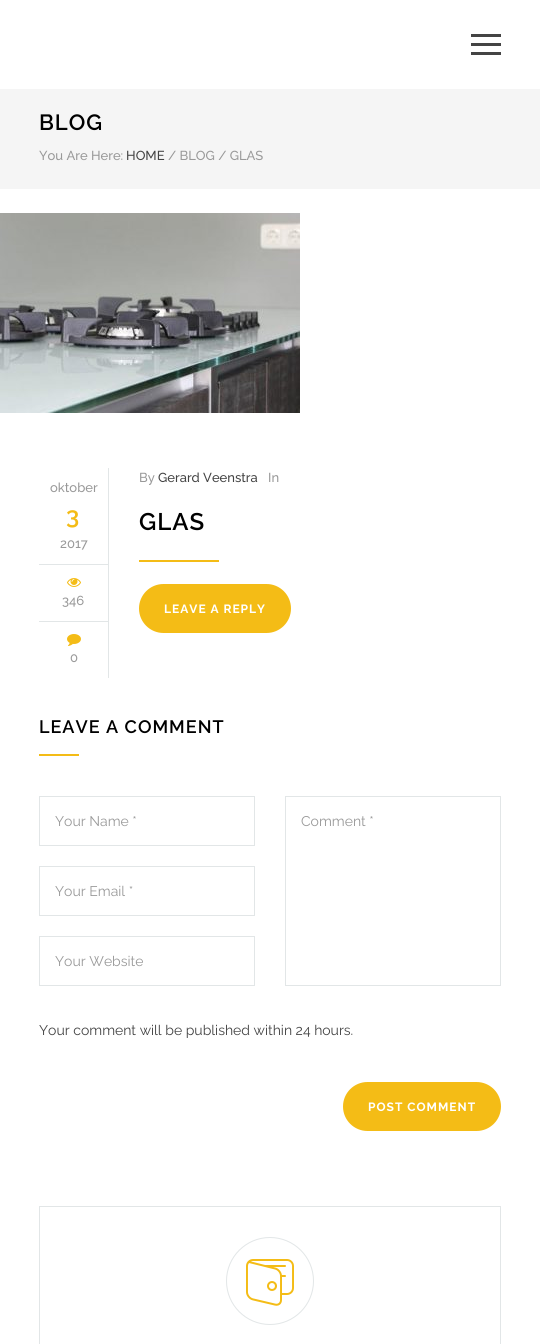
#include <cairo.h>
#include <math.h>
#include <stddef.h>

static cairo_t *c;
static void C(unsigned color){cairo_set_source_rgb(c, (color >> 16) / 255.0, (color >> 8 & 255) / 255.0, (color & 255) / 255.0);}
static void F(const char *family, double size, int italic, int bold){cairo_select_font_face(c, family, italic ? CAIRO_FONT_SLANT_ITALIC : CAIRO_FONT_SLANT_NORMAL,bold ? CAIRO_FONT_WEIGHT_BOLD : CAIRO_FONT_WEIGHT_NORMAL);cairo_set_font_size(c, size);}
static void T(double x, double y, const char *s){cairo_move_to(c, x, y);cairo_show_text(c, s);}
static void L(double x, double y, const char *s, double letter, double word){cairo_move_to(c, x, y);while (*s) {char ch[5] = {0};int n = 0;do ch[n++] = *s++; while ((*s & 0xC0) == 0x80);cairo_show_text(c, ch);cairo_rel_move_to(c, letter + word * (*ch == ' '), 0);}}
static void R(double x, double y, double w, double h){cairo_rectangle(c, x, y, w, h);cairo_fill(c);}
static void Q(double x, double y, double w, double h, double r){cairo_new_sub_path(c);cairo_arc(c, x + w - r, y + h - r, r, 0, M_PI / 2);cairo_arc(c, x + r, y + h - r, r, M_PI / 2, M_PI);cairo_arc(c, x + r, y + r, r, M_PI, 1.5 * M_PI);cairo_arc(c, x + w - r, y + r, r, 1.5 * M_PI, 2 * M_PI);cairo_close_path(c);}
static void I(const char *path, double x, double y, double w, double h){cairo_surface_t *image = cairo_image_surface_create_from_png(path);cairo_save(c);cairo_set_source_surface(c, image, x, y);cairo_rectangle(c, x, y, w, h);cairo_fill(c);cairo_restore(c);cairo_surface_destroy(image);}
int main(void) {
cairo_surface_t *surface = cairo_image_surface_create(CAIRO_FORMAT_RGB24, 540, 1344);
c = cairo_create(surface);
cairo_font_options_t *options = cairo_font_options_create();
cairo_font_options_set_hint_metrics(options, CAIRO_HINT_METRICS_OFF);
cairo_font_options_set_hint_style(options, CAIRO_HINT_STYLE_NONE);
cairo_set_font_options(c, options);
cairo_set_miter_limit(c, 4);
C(0xffffff);
cairo_paint(c);
C(0x444444);
R(471,34,30,3);
R(471,43,30,3);
R(471,52,30,3);
C(0xf5f5f5);
R(0,89,540,100);
F("Raleway SemiBold",22,0,0);
C(0x000000);
L(39,130,"BLOG",1,0);
F("Raleway Medium",13,0,0);
C(0x999999);
T(39,160,"You Are Here:");
C(0x444444);
T(126,160,"HOME");
C(0x999999);
T(168,160,"/ BLOG / GLAS");
I("1.png",0,213,300,200);
C(0xe2e6e7);
R(108,468,1,96);
C(0x999999);
T(50,492,"oktober");
F("Raleway SemiBold",24,0,0);
C(0xf4bc16);
L(66,524,"3",1,0);
F("Raleway Medium",13,0,0);
C(0x999999);
T(60,548,"2017");
C(0xe2e6e7);
R(39,564,70,1);
R(108,564,1,57);
I("2.png",67,578,14,9);
C(0x999999);
T(62,605,"346");
C(0xe2e6e7);
R(39,621,70,1);
R(108,621,1,57);
I("3.png",67,634,14,12);
C(0x999999);
T(70,662,"0");
T(139,482,"By");
C(0x444444);
T(158,482,"Gerard Veenstra");
C(0x999999);
T(268,482,"In");
F("Raleway SemiBold",24,0,0);
C(0x000000);
L(139,530,"GLAS",1,0);
C(0xf4bc16);
R(139,560,80,2);
Q(140,585,150,47,23.5);
cairo_fill_preserve(c);
cairo_stroke(c);
F("Raleway",12,0,1);
C(0xffffff);
L(164,613,"LEAVE A REPLY",1,0);
F("Raleway SemiBold",18,0,0);
C(0x000000);
L(39,733,"LEAVE A COMMENT",1,0);
C(0xf4bc16);
R(39,754,40,2);
cairo_rectangle(c,39.5,796.5,215,49);
C(0xe2e6e7);
cairo_set_line_width(c,1);
cairo_stroke(c);
F("Raleway",14,0,0);
C(0x999999);
T(55,826,"Your Name *");
cairo_rectangle(c,39.5,866.5,215,49);
C(0xe2e6e7);
cairo_stroke(c);
C(0x999999);
T(55,896,"Your Email *");
cairo_rectangle(c,39.5,936.5,215,49);
C(0xe2e6e7);
cairo_stroke(c);
C(0x999999);
T(55,966,"Your Website");
cairo_rectangle(c,285.5,796.5,215,189);
C(0xe2e6e7);
cairo_stroke(c);
C(0x999999);
T(301,826,"Comment *");
C(0x444444);
T(39,1035,"Your comment will be published within 24 hours.");
C(0xf4bc16);
Q(344,1083,156,47,23.5);
cairo_fill_preserve(c);
cairo_set_line_width(c,2);
cairo_stroke(c);
F("Raleway",12,0,1);
C(0xffffff);
L(368,1111,"POST COMMENT",1,0);
cairo_rectangle(c,39.5,1206.5,461,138);
C(0xe2e6e7);
cairo_set_line_width(c,1);
cairo_stroke(c);
cairo_arc(c,270,1281,43.5,0,2 * M_PI);
cairo_stroke(c);
I("4.png",246,1259,48,47);
cairo_surface_write_to_png(surface, "o.png");
cairo_font_options_destroy(options);
cairo_destroy(c);
cairo_surface_destroy(surface);
return 0;
}
